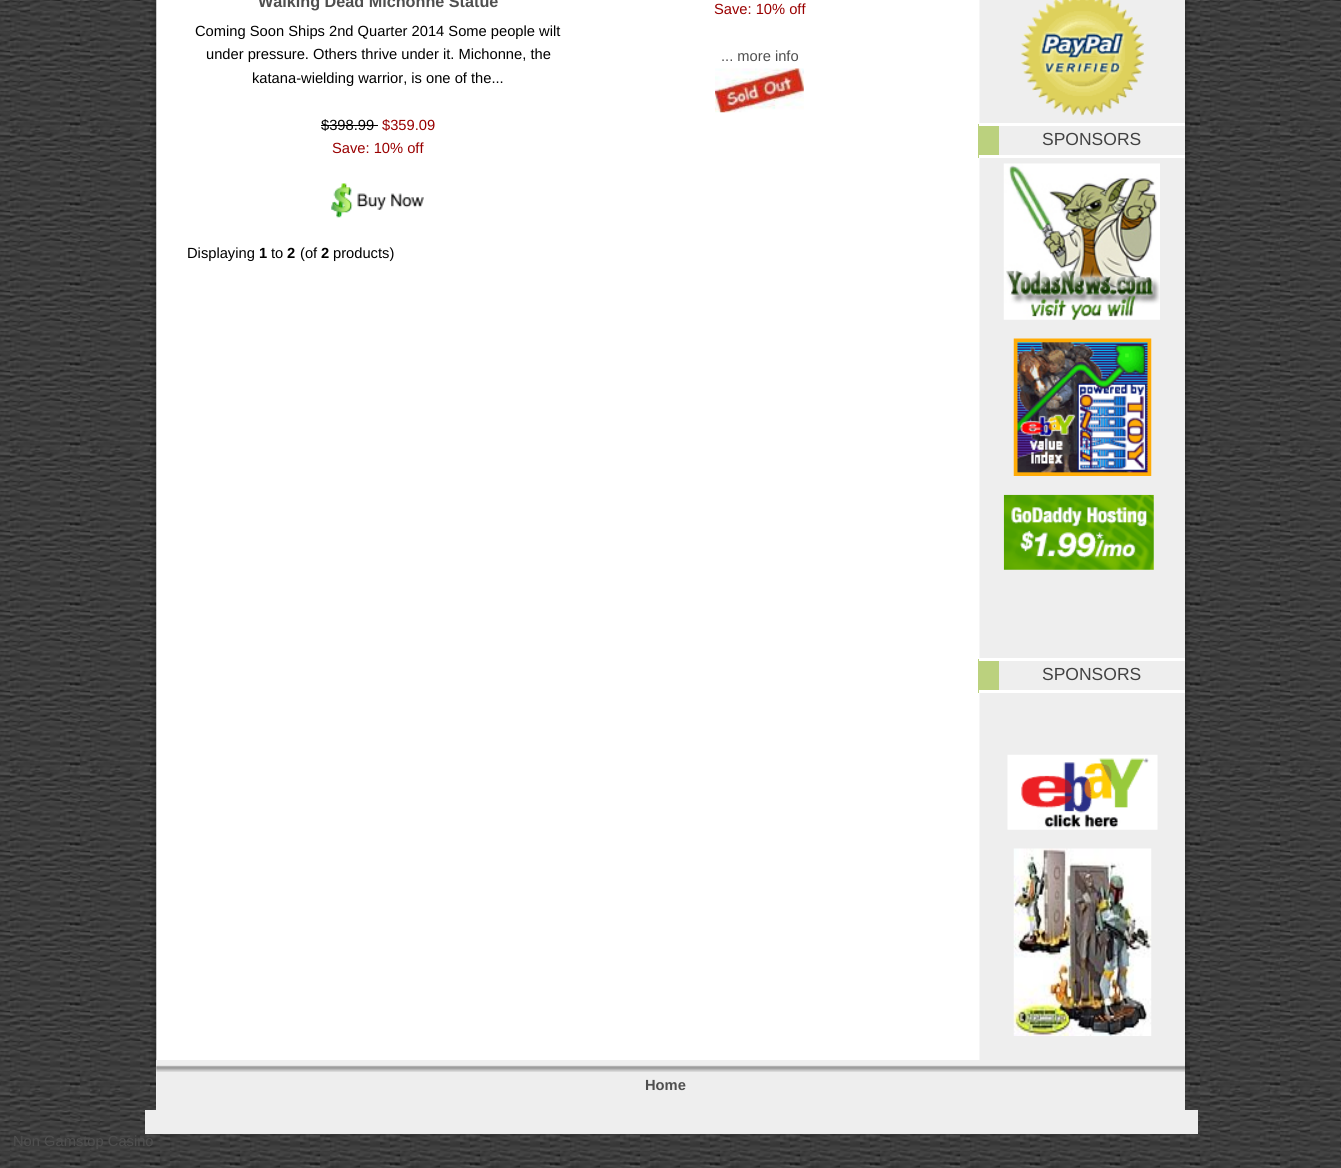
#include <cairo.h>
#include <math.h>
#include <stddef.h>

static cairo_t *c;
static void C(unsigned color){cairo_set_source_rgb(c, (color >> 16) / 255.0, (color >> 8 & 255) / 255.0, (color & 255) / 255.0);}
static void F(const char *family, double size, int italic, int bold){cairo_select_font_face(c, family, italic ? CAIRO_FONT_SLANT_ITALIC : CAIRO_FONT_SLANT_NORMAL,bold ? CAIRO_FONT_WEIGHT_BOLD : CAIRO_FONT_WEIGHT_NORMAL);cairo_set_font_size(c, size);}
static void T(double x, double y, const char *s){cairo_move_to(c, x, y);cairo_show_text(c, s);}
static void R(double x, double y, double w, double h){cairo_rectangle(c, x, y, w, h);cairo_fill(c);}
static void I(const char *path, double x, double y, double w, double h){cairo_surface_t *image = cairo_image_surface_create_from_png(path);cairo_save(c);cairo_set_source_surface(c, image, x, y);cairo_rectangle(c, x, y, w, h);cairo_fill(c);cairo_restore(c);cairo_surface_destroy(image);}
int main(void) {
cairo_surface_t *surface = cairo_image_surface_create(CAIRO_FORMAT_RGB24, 1341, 1168);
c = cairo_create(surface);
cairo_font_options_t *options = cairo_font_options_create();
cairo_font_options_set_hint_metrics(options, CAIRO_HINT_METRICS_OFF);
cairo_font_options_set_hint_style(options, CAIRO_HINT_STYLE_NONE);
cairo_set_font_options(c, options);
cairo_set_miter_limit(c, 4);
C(0xffffff);
cairo_paint(c);
I("1.png",0,0,1341,1168);
I("2.png",1185,0,5,1067);
I("3.png",151,0,6,1067);
I("4.png",156,0,1029,1060);
F("Liberation Sans",16.2,0,1);
C(0x4f4f4f);
T(258,7,"Walking Dead Michonne Statue");
F("Liberation Sans",14.7,0,0);
C(0x000000);
T(195,36,"Coming Soon Ships 2nd Quarter 2014 Some people wilt");
T(206,59,"under pressure. Others thrive under it. Michonne, the");
T(252,83,"katana-wielding warrior, is one of the...");
T(321,130,"$398.99");
R(321,125,57,1);
C(0x990000);
T(382,130,"$359.09");
T(332,153,"Save: 10% off");
I("5.png",331,183,93,35);
T(714,14,"Save: 10% off");
C(0x4f4f4f);
T(721,61,"... more info");
I("6.png",715,68,89,45);
C(0x000000);
T(187,258,"Displaying");
F("Liberation Sans",14.7,0,1);
T(259,258,"1");
F("Liberation Sans",14.7,0,0);
T(271,258,"to");
F("Liberation Sans",14.7,0,1);
T(287,258,"2");
F("Liberation Sans",14.7,0,0);
T(300,258,"(of");
F("Liberation Sans",14.7,0,1);
T(321,258,"2");
F("Liberation Sans",14.7,0,0);
T(333,258,"products)");
I("7.png",1021,0,123,116);
C(0xbbd17e);
R(978,124,21,34);
C(0xffffff);
R(979,123,206,3);
R(979,155,206,3);
F("Liberation Sans",17.5,0,0);
C(0x424242);
T(1042,145,"SPONSORS");
I("8.png",1003,163,157,157);
I("9.png",1013,338,139,138);
I("10.png",1003,494,151,76);
C(0xbbd17e);
R(978,659,21,34);
C(0xffffff);
R(979,658,206,3);
R(979,690,206,3);
C(0x424242);
T(1042,680,"SPONSORS");
I("11.png",1007,754,151,76);
I("12.png",1013,848,139,188);
C(0xeeeeee);
R(156,1060,1029,50);
I("13.png",156,1065,1034,7);
F("Liberation Sans",14.7,0,1);
C(0x4f4f4f);
T(645,1090,"Home");
C(0xeeeeee);
R(145,1110,1053,24);
F("Liberation Sans",14.7,0,0);
C(0x4f4f4f);
T(13,1146,"Non Gamstop Casino");
cairo_surface_write_to_png(surface, "o.png");
cairo_font_options_destroy(options);
cairo_destroy(c);
cairo_surface_destroy(surface);
return 0;
}
